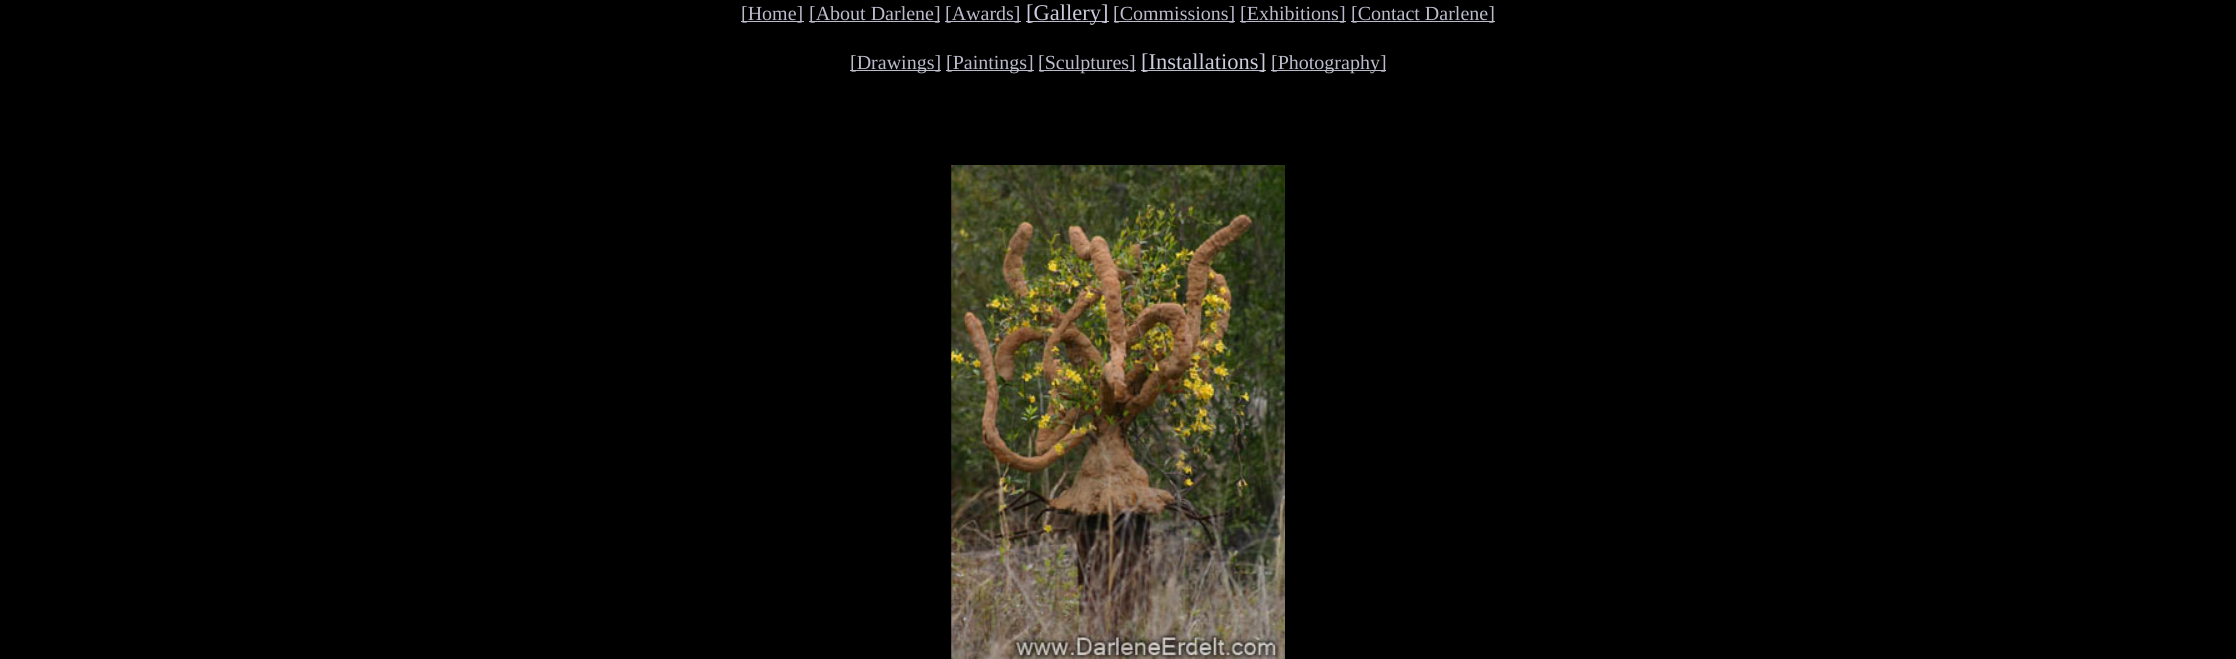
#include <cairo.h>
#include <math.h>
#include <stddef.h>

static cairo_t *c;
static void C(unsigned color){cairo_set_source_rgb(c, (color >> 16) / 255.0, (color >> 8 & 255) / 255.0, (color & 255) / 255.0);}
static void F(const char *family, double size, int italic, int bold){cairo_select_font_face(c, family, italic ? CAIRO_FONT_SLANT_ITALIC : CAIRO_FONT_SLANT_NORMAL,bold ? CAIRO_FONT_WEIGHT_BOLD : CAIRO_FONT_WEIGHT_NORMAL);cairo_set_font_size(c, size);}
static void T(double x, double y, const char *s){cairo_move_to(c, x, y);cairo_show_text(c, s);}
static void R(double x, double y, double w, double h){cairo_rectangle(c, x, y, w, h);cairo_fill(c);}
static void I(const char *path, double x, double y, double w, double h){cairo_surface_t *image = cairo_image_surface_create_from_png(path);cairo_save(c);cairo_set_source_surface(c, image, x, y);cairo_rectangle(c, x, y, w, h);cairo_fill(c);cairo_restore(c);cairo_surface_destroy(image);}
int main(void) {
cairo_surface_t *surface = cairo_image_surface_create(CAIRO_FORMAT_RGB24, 2236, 659);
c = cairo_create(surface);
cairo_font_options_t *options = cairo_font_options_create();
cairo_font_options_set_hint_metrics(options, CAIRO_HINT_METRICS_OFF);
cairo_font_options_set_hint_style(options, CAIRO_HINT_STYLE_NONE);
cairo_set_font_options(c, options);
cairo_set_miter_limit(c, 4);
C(0x000000);
cairo_paint(c);
C(0xbbbbcc);
R(741,21,63,1);
F("Liberation Serif",20,0,0);
T(741,20,"[Home]");
R(809,21,131,1);
T(809,20,"[About Darlene]");
R(945,21,76,1);
T(945,20,"[Awards]");
R(1026,21,83,1);
F("Liberation Serif",22.5,0,0);
C(0xccccdd);
T(1026,20,"[Gallery]");
C(0xbbbbcc);
R(1114,21,121,1);
F("Liberation Serif",20,0,0);
T(1113,20,"[Commissions]");
R(1240,21,106,1);
T(1240,20,"[Exhibitions]");
R(1351,21,144,1);
T(1351,20,"[Contact Darlene]");
R(850,70,91,1);
T(850,69,"[Drawings]");
R(946,70,88,1);
T(946,69,"[Paintings]");
R(1039,70,97,1);
T(1038,69,"[Sculptures]");
R(1141,70,125,1);
F("Liberation Serif",22.5,0,0);
C(0xccccdd);
T(1141,69,"[Installations]");
C(0xbbbbcc);
R(1271,70,115,1);
F("Liberation Serif",20,0,0);
T(1271,69,"[Photography]");
I("1.png",951,165,334,494);
cairo_surface_write_to_png(surface, "o.png");
cairo_font_options_destroy(options);
cairo_destroy(c);
cairo_surface_destroy(surface);
return 0;
}
